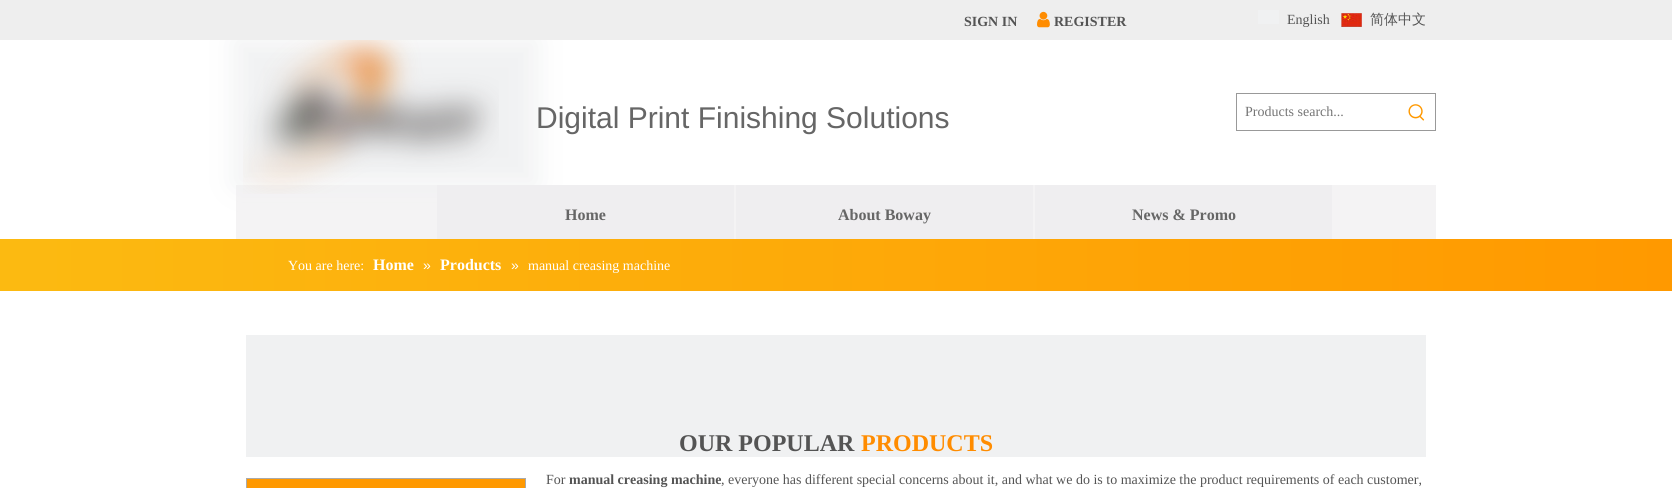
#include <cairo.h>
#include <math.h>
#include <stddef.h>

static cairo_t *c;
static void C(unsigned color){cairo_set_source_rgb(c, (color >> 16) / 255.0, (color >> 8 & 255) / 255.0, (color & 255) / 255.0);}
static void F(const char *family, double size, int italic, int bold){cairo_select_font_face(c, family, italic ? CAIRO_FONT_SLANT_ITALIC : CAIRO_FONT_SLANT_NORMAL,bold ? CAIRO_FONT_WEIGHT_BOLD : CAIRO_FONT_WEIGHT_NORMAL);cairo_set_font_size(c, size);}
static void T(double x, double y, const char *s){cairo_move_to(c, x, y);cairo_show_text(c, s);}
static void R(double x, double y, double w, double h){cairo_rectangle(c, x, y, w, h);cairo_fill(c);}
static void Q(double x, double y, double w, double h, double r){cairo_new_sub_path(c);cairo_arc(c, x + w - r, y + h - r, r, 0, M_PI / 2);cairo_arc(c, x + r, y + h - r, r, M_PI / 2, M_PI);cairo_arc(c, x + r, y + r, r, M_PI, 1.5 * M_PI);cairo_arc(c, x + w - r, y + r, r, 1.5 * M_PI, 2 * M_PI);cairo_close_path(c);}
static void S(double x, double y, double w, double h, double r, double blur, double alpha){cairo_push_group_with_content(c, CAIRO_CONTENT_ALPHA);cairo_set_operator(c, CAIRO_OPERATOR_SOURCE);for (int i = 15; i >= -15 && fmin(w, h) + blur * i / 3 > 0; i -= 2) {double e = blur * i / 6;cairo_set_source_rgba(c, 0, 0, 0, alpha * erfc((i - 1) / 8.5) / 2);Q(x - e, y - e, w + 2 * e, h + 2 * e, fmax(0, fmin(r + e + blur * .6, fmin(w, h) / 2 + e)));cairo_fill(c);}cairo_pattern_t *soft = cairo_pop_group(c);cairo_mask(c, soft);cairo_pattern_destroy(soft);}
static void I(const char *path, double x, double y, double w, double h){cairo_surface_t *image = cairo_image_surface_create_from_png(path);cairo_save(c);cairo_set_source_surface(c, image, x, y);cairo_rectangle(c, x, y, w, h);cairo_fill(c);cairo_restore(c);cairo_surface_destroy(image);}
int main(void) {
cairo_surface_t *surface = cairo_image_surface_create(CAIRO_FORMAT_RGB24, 1672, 488);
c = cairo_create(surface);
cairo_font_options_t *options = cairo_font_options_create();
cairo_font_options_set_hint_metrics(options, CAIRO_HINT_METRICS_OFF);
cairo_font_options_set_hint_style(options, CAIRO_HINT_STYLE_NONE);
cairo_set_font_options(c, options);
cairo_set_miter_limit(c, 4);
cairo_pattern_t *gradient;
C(0xffffff);
cairo_paint(c);
C(0xeeeeee);
R(0,0,1672,40);
F("FontAwesome",18,0,0);
C(0xff8c00);
T(941,26,"");
F("Liberation Serif",14,0,1);
C(0x545454);
T(964,26,"SIGN IN");
I("1.png",1037,11,13,17);
T(1054,26,"REGISTER");
C(0xf0f1f2);
R(1258,10,21,14);
F("Liberation Serif",14,0,0);
C(0x545454);
T(1287,24,"English");
I("2.png",1341,13,21,14);
F("WenQuanYi Zen Hei Medium",14,0,0);
T(1370,24,"简体中文");
C(0xf4f3f4);
R(236,185,1200,54);
cairo_save(c);
cairo_rectangle(c,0,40,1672,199);
cairo_clip(c);
C(0xf0f1f2);
S(236,40,300,145,0,15,1);
cairo_restore(c);
I("3.png",243,40,256,154);
F("Liberation Sans",30,0,0);
C(0x666666);
T(536,128,"Digital Print Finishing Solutions");
cairo_rectangle(c,1236.5,93.5,199,37);
C(0x999999);
cairo_set_line_width(c,1);
cairo_stroke(c);
F("Liberation Serif",14,0,0);
C(0x757575);
T(1245,116,"Products search...");
I("4.png",1408,104,17,17);
C(0xefeef0);
R(437,185,297,54);
F("Liberation Serif",16,0,1);
C(0x666666);
T(565,220,"Home");
C(0xefeef0);
R(736,185,297,54);
C(0x666666);
T(838,220,"About Boway");
C(0xefeef0);
R(1035,185,297,54);
C(0x666666);
T(1132,220,"News & Promo");
gradient = cairo_pattern_create_linear(0,265,1672,265);
cairo_pattern_add_color_stop_rgba(gradient,0,0.988,0.729,0.067,1);
cairo_pattern_add_color_stop_rgba(gradient,1,1,0.6,0,1);
cairo_set_source(c,gradient);
cairo_pattern_destroy(gradient);
R(0,239,1672,52);
F("Liberation Serif",14,0,0);
C(0xffffff);
T(288,270,"You are here:");
F("Liberation Serif",16,0,1);
T(373,270,"Home");
F("Liberation Sans",14,0,0);
T(423,270,"»");
F("Liberation Serif",16,0,1);
T(440,270,"Products");
F("Liberation Sans",14,0,0);
T(511,270,"»");
F("Liberation Serif",14,0,0);
T(528,270,"manual creasing machine");
C(0xf0f1f2);
R(246,335,1180,122);
F("Liberation Serif",24,0,1);
C(0x545454);
T(679,451,"OUR POPULAR");
C(0xff8c00);
T(861,451,"PRODUCTS");
cairo_rectangle(c,246.5,478.5,279,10);
C(0xaaaaaa);
cairo_stroke(c);
C(0xff9900);
R(247,479,278,9);
F("Liberation Serif",14,0,0);
C(0x545454);
T(546,484,"For");
F("Liberation Serif",14,0,1);
T(569,484,"manual creasing machine");
F("Liberation Serif",14,0,0);
T(721,484,", everyone has different special concerns about it, and what we do is to maximize the product requirements of each customer,");
cairo_surface_write_to_png(surface, "o.png");
cairo_font_options_destroy(options);
cairo_destroy(c);
cairo_surface_destroy(surface);
return 0;
}
